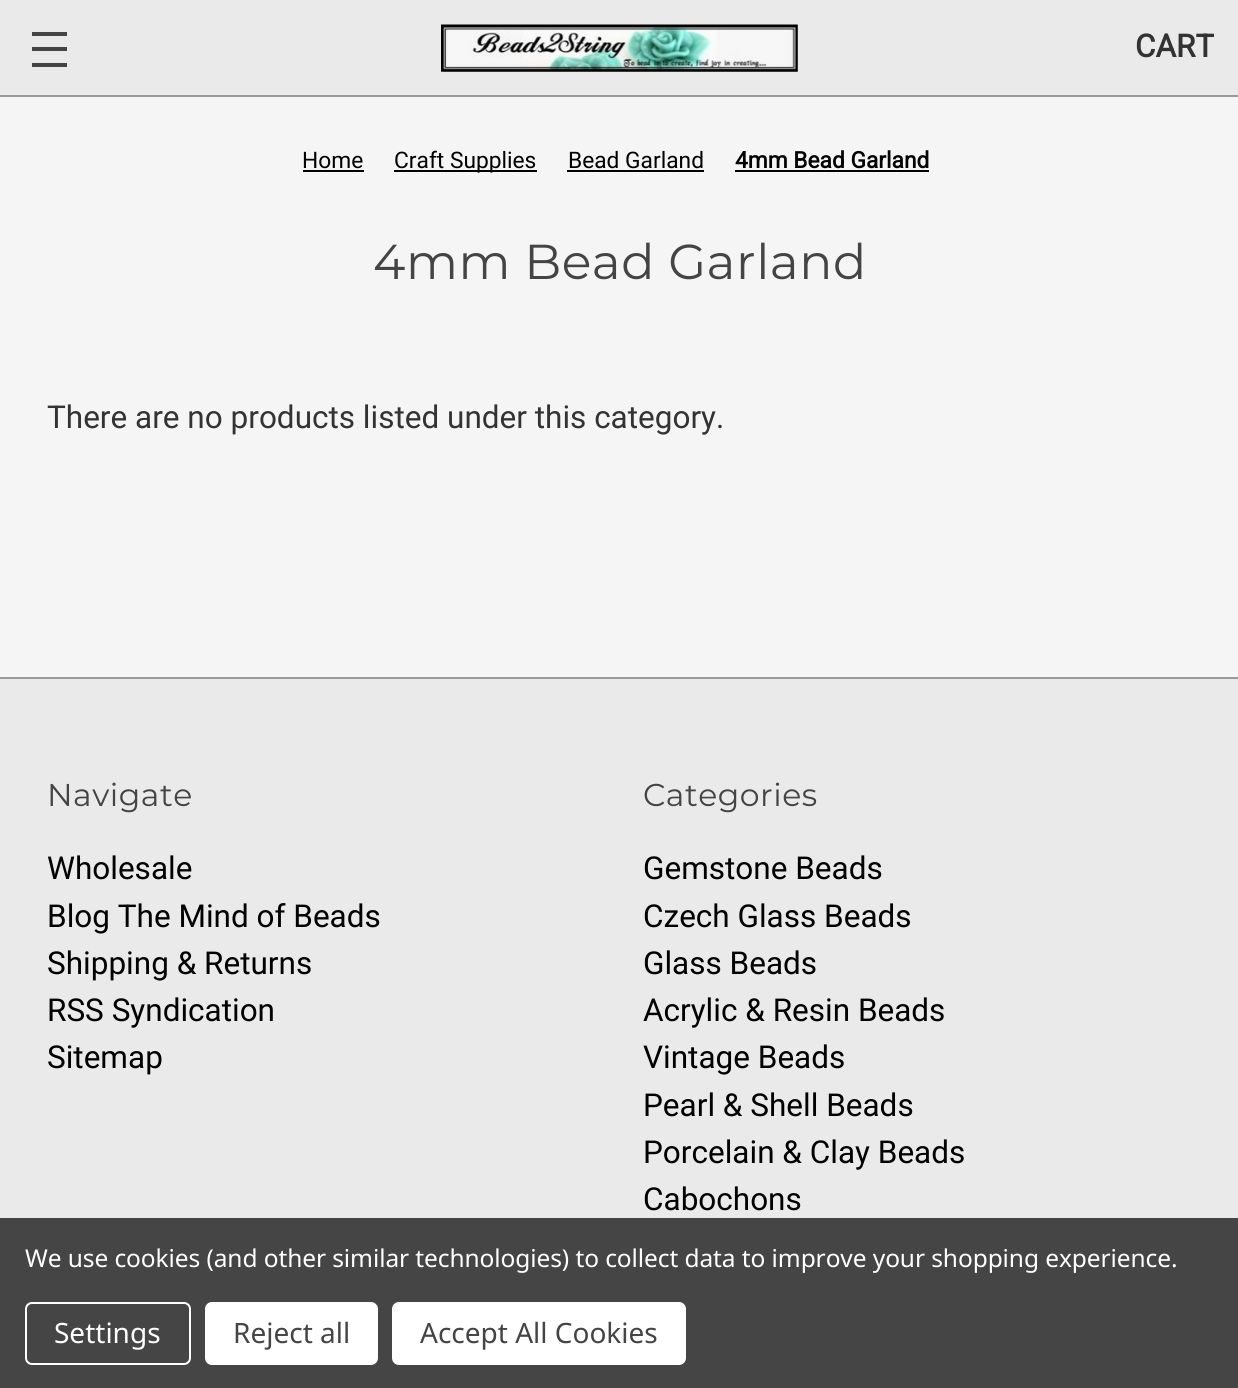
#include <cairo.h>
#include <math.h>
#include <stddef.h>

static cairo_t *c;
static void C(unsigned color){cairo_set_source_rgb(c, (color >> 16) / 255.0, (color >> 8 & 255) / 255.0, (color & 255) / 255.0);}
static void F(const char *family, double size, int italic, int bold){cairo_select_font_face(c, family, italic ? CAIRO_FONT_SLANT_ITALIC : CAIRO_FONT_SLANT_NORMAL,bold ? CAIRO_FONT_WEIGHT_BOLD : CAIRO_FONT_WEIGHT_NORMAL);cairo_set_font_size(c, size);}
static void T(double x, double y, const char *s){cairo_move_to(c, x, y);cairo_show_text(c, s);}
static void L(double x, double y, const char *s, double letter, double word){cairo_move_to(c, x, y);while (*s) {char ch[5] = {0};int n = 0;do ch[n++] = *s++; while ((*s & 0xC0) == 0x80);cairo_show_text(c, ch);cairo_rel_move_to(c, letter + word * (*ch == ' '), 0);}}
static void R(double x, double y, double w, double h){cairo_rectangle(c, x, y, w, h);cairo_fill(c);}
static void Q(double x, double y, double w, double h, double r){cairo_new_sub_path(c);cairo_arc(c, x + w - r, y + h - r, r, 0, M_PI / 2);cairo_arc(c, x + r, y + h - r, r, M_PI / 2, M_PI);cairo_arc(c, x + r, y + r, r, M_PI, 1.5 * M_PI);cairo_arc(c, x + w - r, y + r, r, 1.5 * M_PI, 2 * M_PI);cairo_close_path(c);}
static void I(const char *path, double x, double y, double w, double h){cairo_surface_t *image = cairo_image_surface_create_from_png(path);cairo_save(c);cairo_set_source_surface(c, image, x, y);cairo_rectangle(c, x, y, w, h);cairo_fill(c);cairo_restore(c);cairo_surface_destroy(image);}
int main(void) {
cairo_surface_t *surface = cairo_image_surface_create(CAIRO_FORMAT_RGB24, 1238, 1388);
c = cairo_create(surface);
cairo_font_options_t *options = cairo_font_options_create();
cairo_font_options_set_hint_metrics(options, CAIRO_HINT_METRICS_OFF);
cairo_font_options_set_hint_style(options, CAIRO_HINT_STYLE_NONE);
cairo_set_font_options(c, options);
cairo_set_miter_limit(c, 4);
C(0xf5f5f5);
cairo_paint(c);
C(0xeaeaea);
R(0,0,1238,95);
C(0x999999);
R(0,95,1238,2);
C(0x444444);
R(32,47,35,4);
R(32,32,35,4);
R(32,63,35,4);
I("1.png",441,24,357,48);
F("Roboto",31.5,0,1);
C(0x333333);
T(1135,57,"CART");
F("Roboto",22.75,0,0);
C(0x000000);
T(302,168,"Home");
R(303,170,61,2);
R(394,170,143,2);
T(394,168,"Craft Supplies");
T(568,168,"Bead Garland");
R(567,170,137,2);
F("Roboto",22.75,0,1);
T(735,168,"4mm Bead Garland");
R(735,170,194,2);
F("Montserrat",49,0,0);
C(0x444444);
L(373,279,"4mm Bead Garland",.5,0);
F("Roboto",31.5,0,0);
C(0x333333);
T(47,428,"There are no products listed under this category.");
C(0xeaeaea);
R(0,679,1238,539);
C(0x999999);
R(0,677,1238,2);
F("Montserrat",31.5,0,0);
C(0x444444);
L(47,806,"Navigate",.5,0);
F("Roboto",31.5,0,0);
C(0x000000);
T(47,879,"Wholesale");
T(47,927,"Blog The Mind of Beads");
T(47,974,"Shipping & Returns");
T(47,1021,"RSS Syndication");
T(47,1068,"Sitemap");
F("Montserrat",31.5,0,0);
C(0x444444);
L(643,806,"Categories",.5,0);
F("Roboto",31.5,0,0);
C(0x000000);
T(643,879,"Gemstone Beads");
T(643,927,"Czech Glass Beads");
T(643,974,"Glass Beads");
T(643,1021,"Acrylic & Resin Beads");
T(643,1068,"Vintage Beads");
T(643,1116,"Pearl & Shell Beads");
T(643,1163,"Porcelain & Clay Beads");
T(643,1210,"Cabochons");
C(0x454545);
R(0,1218,1238,170);
F("Noto Sans",24.5,0,0);
C(0xffffff);
L(25,1267,"We use cookies (and other similar technologies) to collect data to improve your shopping experience.",-.09,0);
Q(26,1303,164,61,6);
cairo_stroke(c);
F("Noto Sans",28,0,0);
T(54,1343,"Settings");
Q(205,1302,173,63,7);
cairo_fill(c);
C(0x444444);
T(233,1343,"Reject all");
C(0xffffff);
Q(392,1302,294,63,7);
cairo_fill(c);
C(0x444444);
T(420,1343,"Accept All Cookies");
cairo_surface_write_to_png(surface, "o.png");
cairo_font_options_destroy(options);
cairo_destroy(c);
cairo_surface_destroy(surface);
return 0;
}
